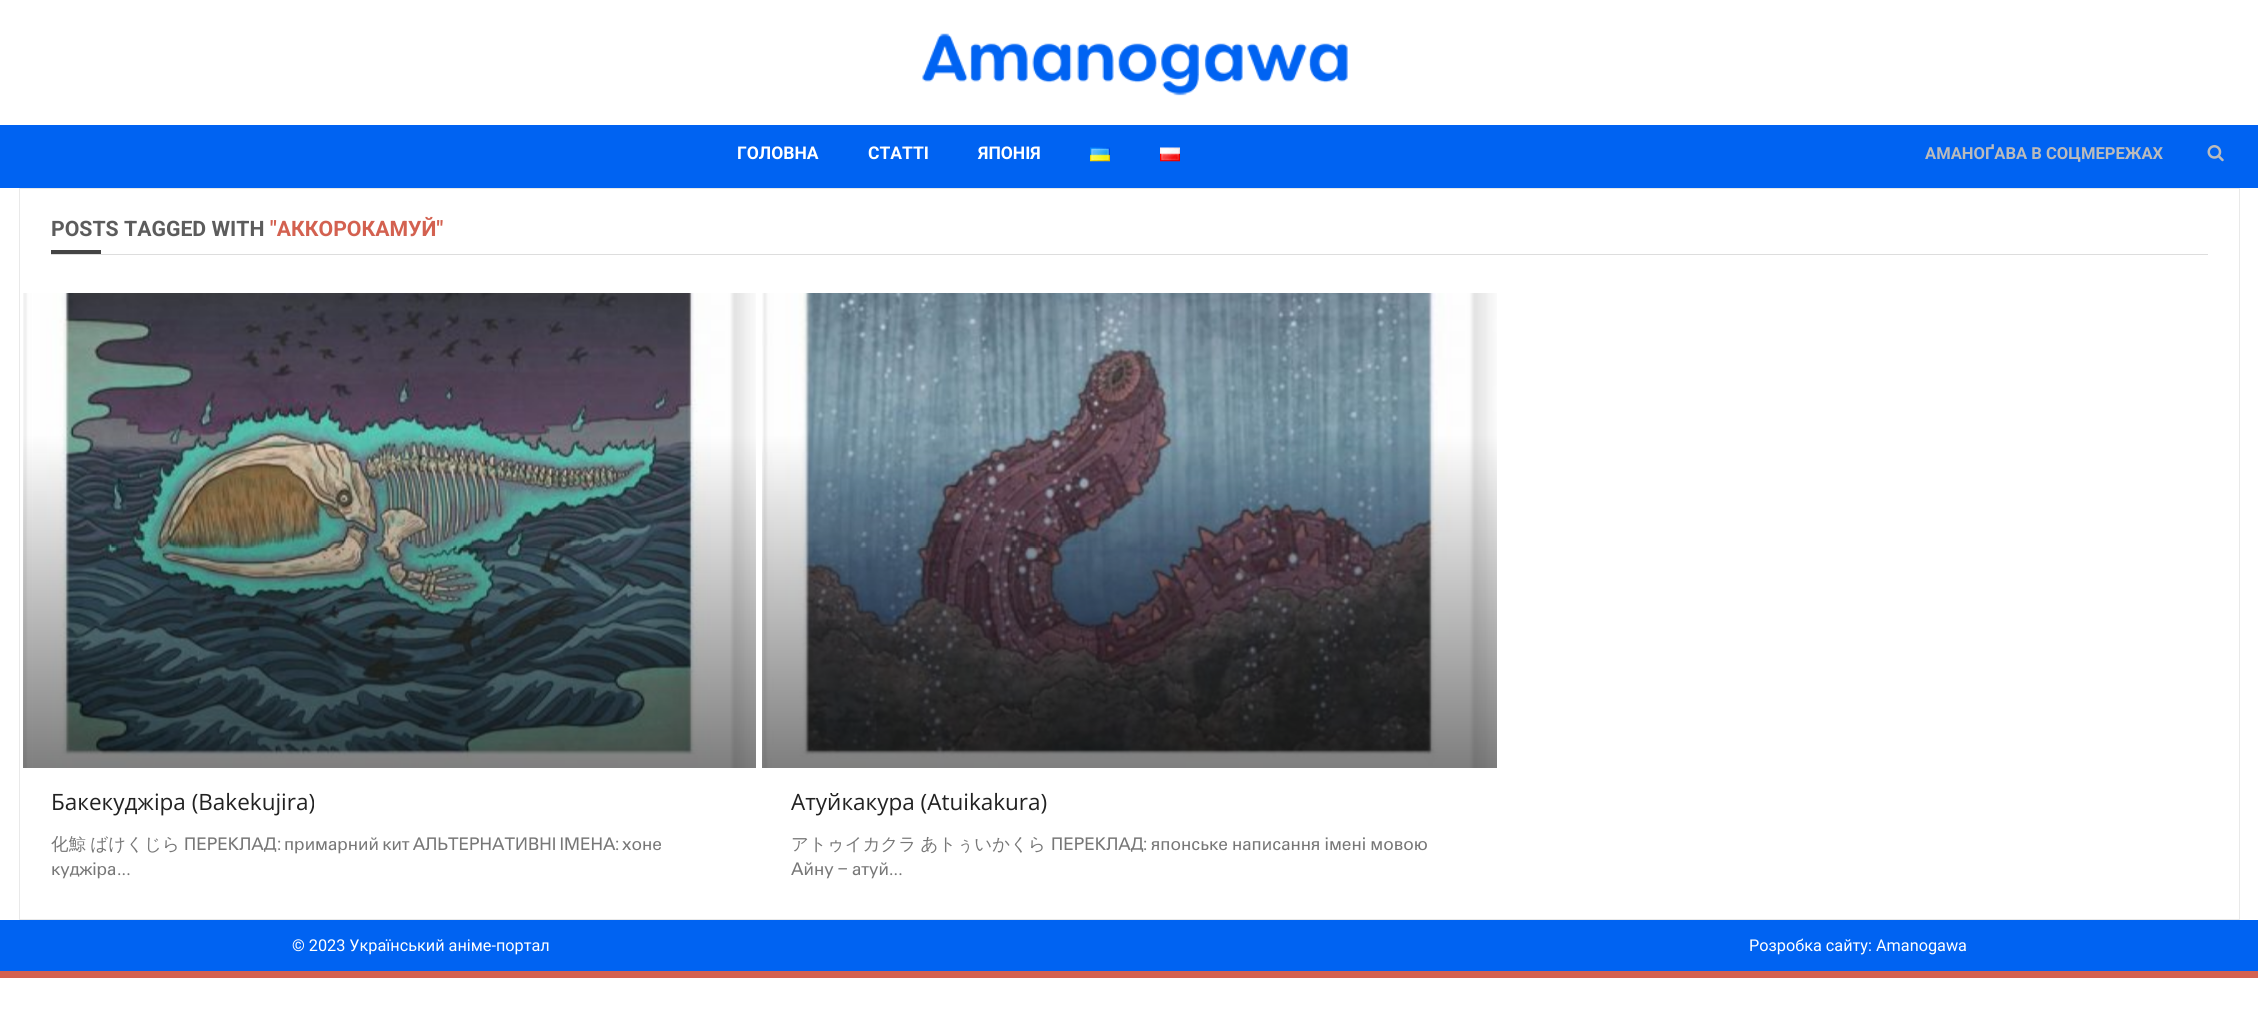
#include <cairo.h>
#include <math.h>
#include <stddef.h>

static cairo_t *c;
static void C(unsigned color){cairo_set_source_rgb(c, (color >> 16) / 255.0, (color >> 8 & 255) / 255.0, (color & 255) / 255.0);}
static void F(const char *family, double size, int italic, int bold){cairo_select_font_face(c, family, italic ? CAIRO_FONT_SLANT_ITALIC : CAIRO_FONT_SLANT_NORMAL,bold ? CAIRO_FONT_WEIGHT_BOLD : CAIRO_FONT_WEIGHT_NORMAL);cairo_set_font_size(c, size);}
static void T(double x, double y, const char *s){cairo_move_to(c, x, y);cairo_show_text(c, s);}
static void L(double x, double y, const char *s, double letter, double word){cairo_move_to(c, x, y);while (*s) {char ch[5] = {0};int n = 0;do ch[n++] = *s++; while ((*s & 0xC0) == 0x80);cairo_show_text(c, ch);cairo_rel_move_to(c, letter + word * (*ch == ' '), 0);}}
static void R(double x, double y, double w, double h){cairo_rectangle(c, x, y, w, h);cairo_fill(c);}
static void I(const char *path, double x, double y, double w, double h){cairo_surface_t *image = cairo_image_surface_create_from_png(path);cairo_save(c);cairo_set_source_surface(c, image, x, y);cairo_rectangle(c, x, y, w, h);cairo_fill(c);cairo_restore(c);cairo_surface_destroy(image);}
int main(void) {
cairo_surface_t *surface = cairo_image_surface_create(CAIRO_FORMAT_RGB24, 2258, 1016);
c = cairo_create(surface);
cairo_font_options_t *options = cairo_font_options_create();
cairo_font_options_set_hint_metrics(options, CAIRO_HINT_METRICS_OFF);
cairo_font_options_set_hint_style(options, CAIRO_HINT_STYLE_NONE);
cairo_set_font_options(c, options);
cairo_set_miter_limit(c, 4);
C(0xffffff);
cairo_paint(c);
I("1.png",922,33,426,63);
C(0x0063f2);
R(0,125,2258,63);
F("Roboto",17.5,0,1);
C(0xffffff);
T(737,159,"ГОЛОВНА");
T(868,159,"СТАТТІ");
T(978,159,"ЯПОНІЯ");
I("2.png",1090,147,20,15);
I("3.png",1160,147,20,15);
F("Roboto",16.6,0,1);
C(0xbbbbbb);
T(1925,159,"АМАНОҐАВА В СОЦМЕРЕЖАХ");
I("4.png",2207,145,17,17);
cairo_rectangle(c,19.5,188.5,2220,731);
C(0xe9e9e9);
cairo_set_line_width(c,1);
cairo_stroke(c);
C(0xdddddd);
R(51,254,2157,1);
F("Roboto",21.25,0,1);
C(0x5c5c5c);
T(51,236,"POSTS TAGGED WITH");
C(0xd36150);
T(270,236,"\"АККОРОКАМУЙ\"");
C(0x444444);
R(51,250,50,4);
I("5.png",23,293,733,475);
F("Open Sans",22.5,0,0);
C(0x222222);
T(51,810,"Бакекуджіра (Bakekujira)");
F("WenQuanYi Zen Hei Medium",17.5,0,0);
C(0x777777);
L(51,850,"化鯨 ばけくじら",0,-1);
T(184,850,"ПЕРЕКЛАД");
F("Roboto",17.5,0,0);
T(277,850,":");
F("WenQuanYi Zen Hei Medium",17.5,0,0);
L(284,850,"примарний кит АЛЬТЕРНАТИВНІ ІМЕНА",0,-2);
F("Roboto",17.5,0,0);
T(615,850,":");
F("WenQuanYi Zen Hei Medium",17.5,0,0);
T(622,850,"хоне");
T(51,875,"куджіра");
F("Roboto",17.5,0,0);
T(117,875,"...");
I("6.png",762,293,735,475);
F("Open Sans",22.5,0,0);
C(0x222222);
T(791,810,"Атуйкакура (Atuikakura)");
F("WenQuanYi Zen Hei Medium",17.5,0,0);
C(0x777777);
L(791,850,"アトゥイカクラ あトぅいかくら",0,-1);
T(1051,850,"ПЕРЕКЛАД");
F("Roboto",17.5,0,0);
T(1143,850,":");
F("WenQuanYi Zen Hei Medium",17.5,0,0);
L(1151,850,"японське написання імені мовою",0,-1);
T(791,875,"Айну");
F("Roboto",17.5,0,0);
T(837,875,"–");
F("WenQuanYi Zen Hei Medium",17.5,0,0);
T(852,875,"атуй");
F("Roboto",17.5,0,0);
T(889,875,"...");
C(0x0063f2);
R(0,920,2258,51);
C(0xd36150);
R(0,971,2258,7);
F("Roboto",16.25,0,0);
C(0xffffff);
T(292,951,"© 2023 Український аніме-портал");
T(1749,951,"Розробка сайту: Amanogawa");
cairo_surface_write_to_png(surface, "o.png");
cairo_font_options_destroy(options);
cairo_destroy(c);
cairo_surface_destroy(surface);
return 0;
}
